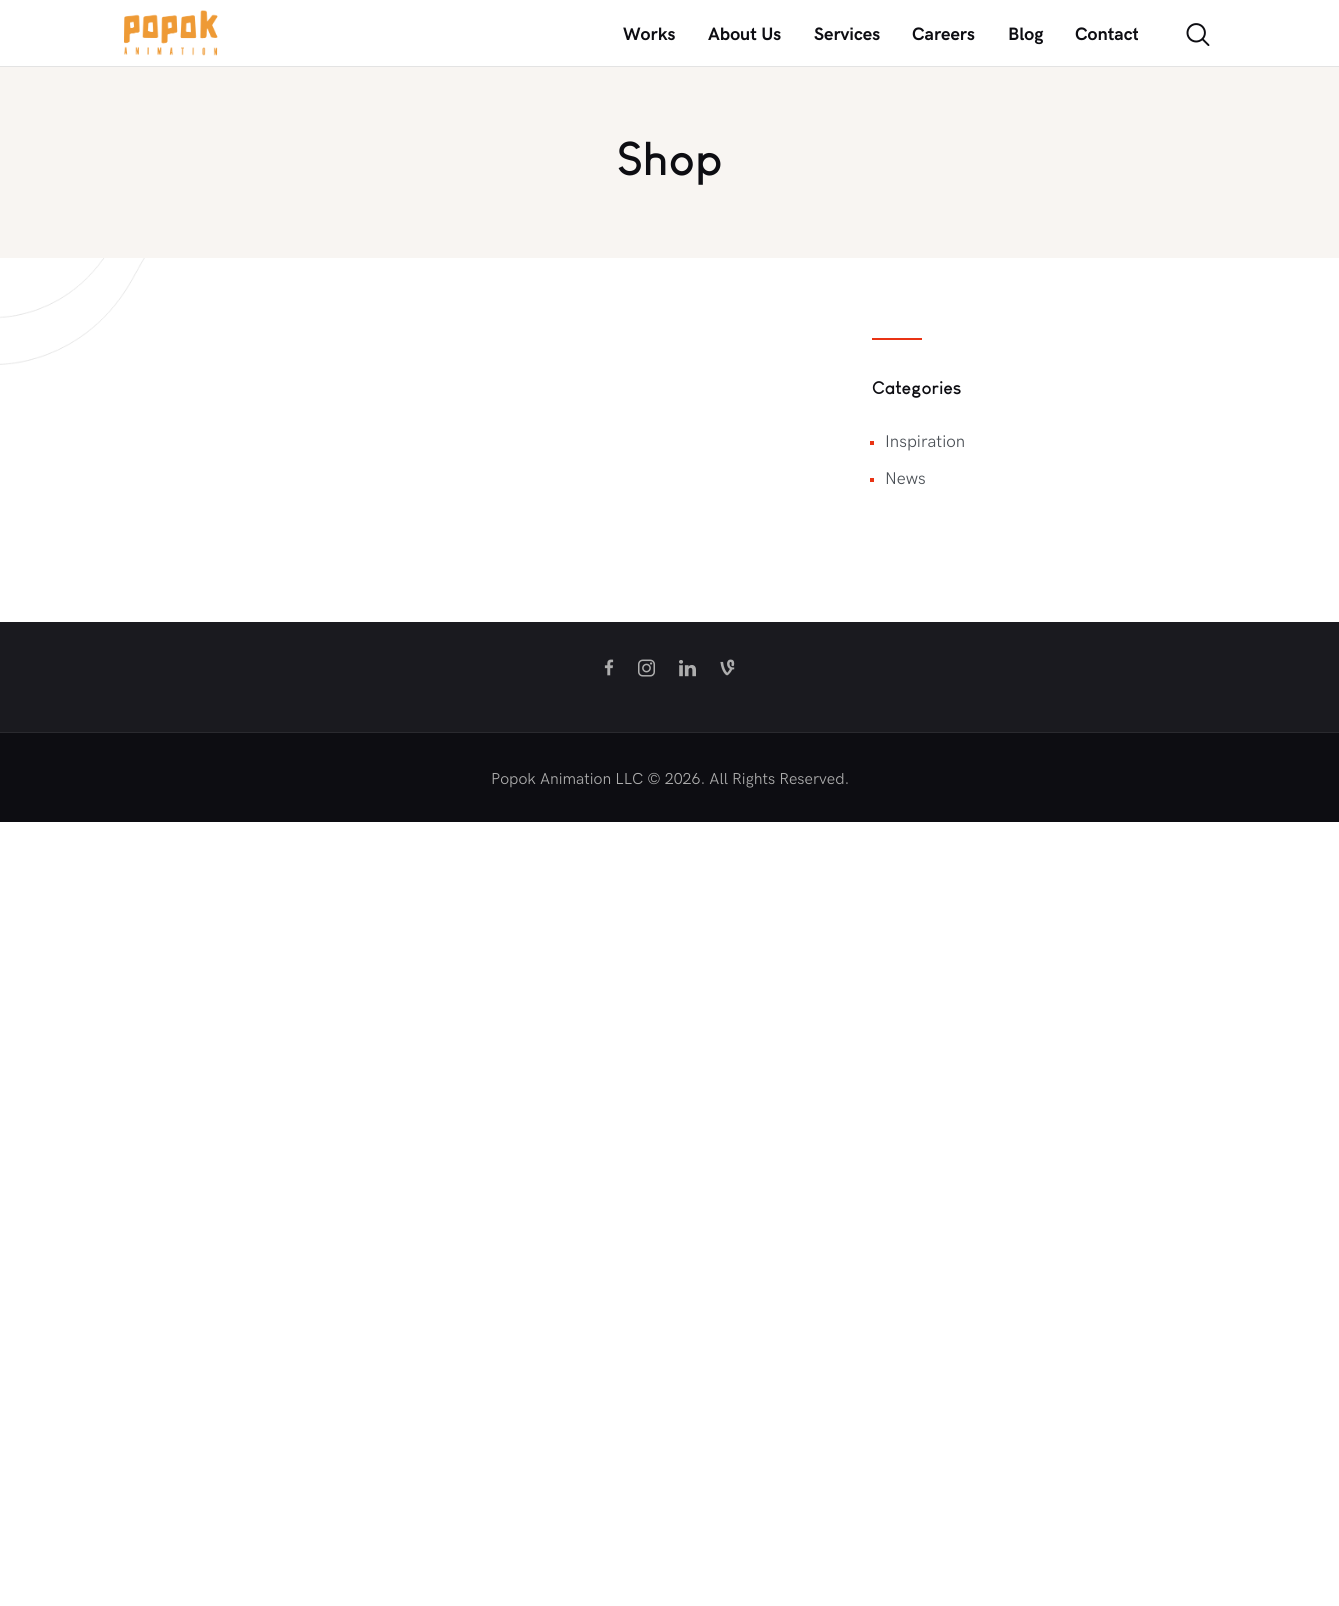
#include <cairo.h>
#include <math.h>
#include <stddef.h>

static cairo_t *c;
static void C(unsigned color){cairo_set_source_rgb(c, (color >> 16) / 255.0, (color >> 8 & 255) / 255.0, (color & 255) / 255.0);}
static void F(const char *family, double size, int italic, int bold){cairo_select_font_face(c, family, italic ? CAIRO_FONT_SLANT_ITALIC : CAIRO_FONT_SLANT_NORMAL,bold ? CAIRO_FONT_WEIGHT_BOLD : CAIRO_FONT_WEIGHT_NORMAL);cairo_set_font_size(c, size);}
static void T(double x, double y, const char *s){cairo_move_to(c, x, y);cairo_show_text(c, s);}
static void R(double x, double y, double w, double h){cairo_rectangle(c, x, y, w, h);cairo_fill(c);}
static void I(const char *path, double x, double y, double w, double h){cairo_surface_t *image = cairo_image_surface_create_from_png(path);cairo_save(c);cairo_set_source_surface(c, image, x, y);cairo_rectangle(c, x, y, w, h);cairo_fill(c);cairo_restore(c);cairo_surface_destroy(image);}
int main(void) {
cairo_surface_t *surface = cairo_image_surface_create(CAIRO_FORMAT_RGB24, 1339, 1606);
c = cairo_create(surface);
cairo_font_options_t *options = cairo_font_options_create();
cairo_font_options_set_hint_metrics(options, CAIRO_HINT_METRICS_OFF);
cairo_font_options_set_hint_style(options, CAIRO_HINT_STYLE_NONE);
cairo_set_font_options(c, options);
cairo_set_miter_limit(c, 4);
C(0xffffff);
cairo_paint(c);
I("1.png",0,258,145,107);
C(0xe3e3e3);
R(0,66,1339,1);
I("2.png",124,10,94,46);
F("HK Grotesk",18,0,1);
C(0x0d0d12);
T(623,40,"Works");
T(708,40,"About Us");
T(814,40,"Services");
T(912,40,"Careers");
T(1008,40,"Blog");
T(1075,40,"Contact");
I("3.png",1186,23,24,23);
C(0xf8f5f2);
R(0,67,1339,191);
F("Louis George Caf",46.5,0,1);
C(0x0d0d12);
T(617,175,"Shop");
C(0xe93314);
R(872,338,50,2);
F("Louis George Caf",18,0,1);
C(0x0d0d12);
T(872,394,"Categories");
C(0xe93314);
R(870,441,4,4);
F("HK Grotesk",17,0,0);
C(0x4a4f55);
T(885,447,"Inspiration");
C(0xe93314);
R(870,478,4,4);
C(0x4a4f55);
T(885,484,"News");
C(0x1a1a1f);
R(0,622,1339,110);
I("4.png",604,659,10,17);
I("5.png",638,659,17,18);
I("6.png",679,660,17,17);
I("7.png",720,659,15,17);
C(0x0d0d12);
R(0,733,1339,89);
C(0x2a2a2f);
R(0,732,1339,1);
F("HK Grotesk",15.9,0,0);
C(0xaeaeae);
T(491,784,"Popok Animation LLC © 2026. All Rights Reserved.");
cairo_surface_write_to_png(surface, "o.png");
cairo_font_options_destroy(options);
cairo_destroy(c);
cairo_surface_destroy(surface);
return 0;
}
